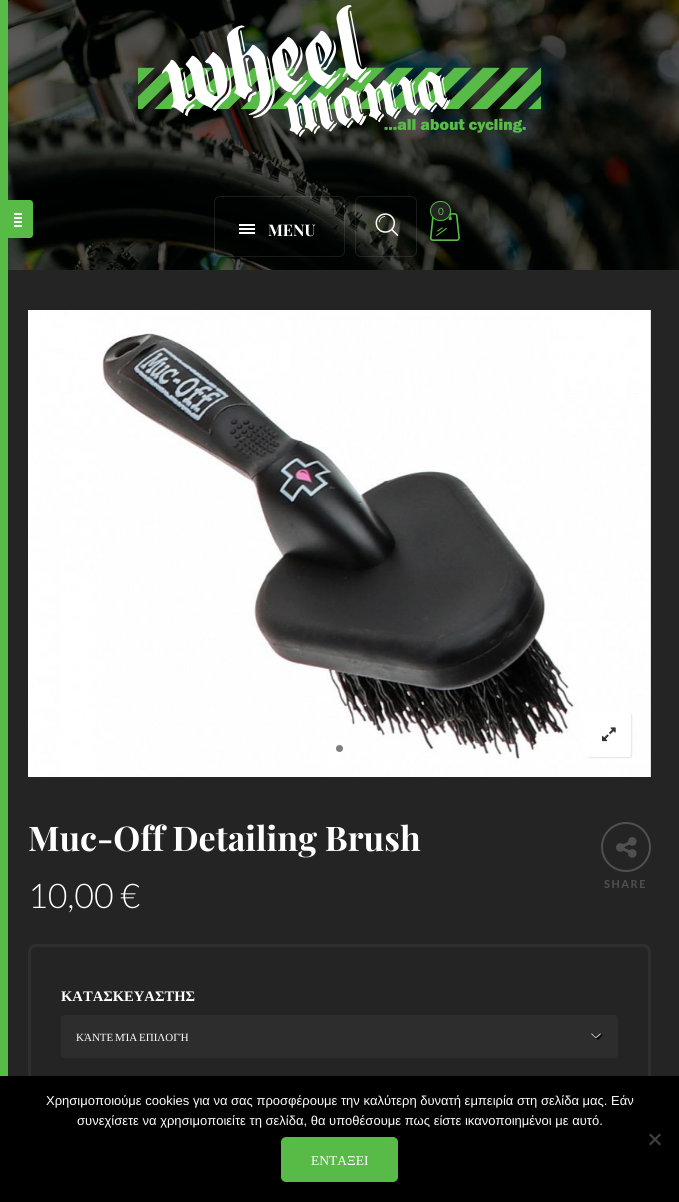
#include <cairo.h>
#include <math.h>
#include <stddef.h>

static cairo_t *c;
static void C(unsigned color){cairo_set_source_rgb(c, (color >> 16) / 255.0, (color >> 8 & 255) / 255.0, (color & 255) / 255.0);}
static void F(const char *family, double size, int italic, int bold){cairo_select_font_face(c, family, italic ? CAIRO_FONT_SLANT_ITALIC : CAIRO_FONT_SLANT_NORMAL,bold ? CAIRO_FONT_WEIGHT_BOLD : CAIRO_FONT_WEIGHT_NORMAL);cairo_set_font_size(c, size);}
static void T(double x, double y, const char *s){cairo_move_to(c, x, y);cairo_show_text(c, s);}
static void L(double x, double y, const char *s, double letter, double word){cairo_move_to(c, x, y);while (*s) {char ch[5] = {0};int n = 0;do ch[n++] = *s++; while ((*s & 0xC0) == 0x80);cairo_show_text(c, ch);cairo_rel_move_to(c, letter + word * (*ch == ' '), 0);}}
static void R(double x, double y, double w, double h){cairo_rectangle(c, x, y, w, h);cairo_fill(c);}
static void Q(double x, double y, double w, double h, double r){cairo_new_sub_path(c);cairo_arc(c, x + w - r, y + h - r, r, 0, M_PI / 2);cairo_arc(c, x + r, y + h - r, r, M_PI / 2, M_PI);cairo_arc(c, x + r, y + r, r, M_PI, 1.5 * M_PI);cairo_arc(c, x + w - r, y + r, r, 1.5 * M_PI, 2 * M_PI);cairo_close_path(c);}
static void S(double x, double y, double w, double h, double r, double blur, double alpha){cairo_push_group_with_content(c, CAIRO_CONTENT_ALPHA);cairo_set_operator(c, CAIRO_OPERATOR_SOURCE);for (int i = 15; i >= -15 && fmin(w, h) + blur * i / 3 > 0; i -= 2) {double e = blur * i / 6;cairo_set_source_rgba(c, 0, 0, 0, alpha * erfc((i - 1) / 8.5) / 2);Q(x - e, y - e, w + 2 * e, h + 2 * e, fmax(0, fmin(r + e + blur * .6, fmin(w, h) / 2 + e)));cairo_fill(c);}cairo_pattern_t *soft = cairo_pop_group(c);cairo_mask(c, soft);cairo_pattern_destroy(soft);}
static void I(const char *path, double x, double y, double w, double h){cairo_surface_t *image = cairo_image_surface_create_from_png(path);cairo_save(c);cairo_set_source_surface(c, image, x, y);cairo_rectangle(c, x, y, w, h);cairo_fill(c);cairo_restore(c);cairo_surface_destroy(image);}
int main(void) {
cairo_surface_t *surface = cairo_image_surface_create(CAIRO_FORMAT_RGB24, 679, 1202);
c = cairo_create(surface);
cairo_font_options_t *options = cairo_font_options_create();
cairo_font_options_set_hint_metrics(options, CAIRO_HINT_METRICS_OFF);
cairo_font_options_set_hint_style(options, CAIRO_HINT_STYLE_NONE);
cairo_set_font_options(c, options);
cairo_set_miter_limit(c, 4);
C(0x242424);
cairo_paint(c);
I("1.png",8,0,671,270);
I("2.png",138,5,403,132);
Q(355.5,196.5,61,60,5.5);
cairo_set_source_rgba(c,0.961,0.961,0.961,0.1);
cairo_set_line_width(c,1);
cairo_stroke(c);
I("3.png",375,213,24,23);
I("4.png",429,207,31,34);
C(0x242424);
Q(430.5,201.5,20,19,9.5);
cairo_fill_preserve(c);
C(0x58ba47);
cairo_stroke(c);
F("Lato",10,0,0);
T(438,215,"0");
Q(214.5,196.5,130,60,5.5);
cairo_set_source_rgba(c,0.961,0.961,0.961,0.1);
cairo_stroke(c);
I("5.png",239,224,16,10);
F("Playfair Display",16,0,1);
C(0xffffff);
T(268,236,"MENU");
C(0x58ba47);
R(0,0,8,1076);
cairo_new_path(c);
cairo_move_to(c,0,200);
cairo_line_to(c,30,200);
cairo_curve_to(c,31.5,200,33,201.5,33,203);
cairo_line_to(c,33,235);
cairo_curve_to(c,33,236.5,31.5,238,30,238);
cairo_line_to(c,0,238);
cairo_close_path(c);
cairo_fill(c);
I("6.png",14,213,8,14);
I("7.png",28,310,623,467);
cairo_save(c);
cairo_set_fill_rule(c,CAIRO_FILL_RULE_EVEN_ODD);
cairo_new_path(c);
cairo_move_to(c,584,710);
cairo_line_to(c,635,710);
cairo_line_to(c,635,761);
cairo_line_to(c,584,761);
cairo_close_path(c);
cairo_move_to(c,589,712);
cairo_line_to(c,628,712);
cairo_curve_to(c,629.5,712,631,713.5,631,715);
cairo_line_to(c,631,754);
cairo_curve_to(c,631,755.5,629.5,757,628,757);
cairo_line_to(c,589,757);
cairo_curve_to(c,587.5,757,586,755.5,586,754);
cairo_line_to(c,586,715);
cairo_curve_to(c,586,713.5,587.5,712,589,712);
cairo_close_path(c);
cairo_clip(c);
C(0x000000);
S(587,713,45,45,3,.5,.1);
cairo_restore(c);
cairo_set_source_rgba(c,1,1,1,0.8);
Q(586,712,45,45,3);
cairo_fill(c);
I("8.png",602,727,14,15);
C(0x7f7f7f);
cairo_arc(c,339.5,748.5,3.5,0,2 * M_PI);
cairo_fill(c);
F("Playfair Display",34,0,1);
C(0xffffff);
T(28,851,"Muc-Off Detailing Brush");
F("Lato Light",34,0,0);
T(28,908,"10,00 €");
cairo_new_path(c);
cairo_arc(c,626,847,24,0,2 * M_PI);
C(0x505050);
cairo_set_line_width(c,2);
cairo_stroke(c);
I("9.png",616,837,21,21);
F("Lato",11,0,1);
L(604,888,"SHARE",1.5,0);
Q(29.5,945.5,620,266,6.5);
C(0x2f2f2f);
cairo_set_line_width(c,3);
cairo_stroke(c);
F("Liberation Serif",14.6,0,1);
C(0xffffff);
T(61,1001,"ΚΑΤΑΣΚΕΥΑΣΤΗΣ");
C(0x2d2d2d);
Q(61,1015,557,43,4);
cairo_fill(c);
cairo_new_path(c);
cairo_move_to(c,594,1035);
cairo_line_to(c,598,1039);
cairo_line_to(c,602,1035);
C(0x000000);
cairo_set_line_width(c,1.3);
cairo_set_line_cap(c,CAIRO_LINE_CAP_ROUND);
cairo_set_line_join(c,CAIRO_LINE_JOIN_ROUND);
cairo_stroke(c);
F("Liberation Serif",11,0,0);
C(0xffffff);
L(76,1041,"ΚΆΝΤΕ ΜΊΑ ΕΠΙΛΟΓΉ",0,-1);
I("10.png",591,1033,10,5);
C(0x000000);
R(0,1076,679,126);
F("Liberation Sans",13,0,0);
C(0xffffff);
T(46,1105,"Χρησιμοποιούμε cookies για να σας προσφέρουμε την καλύτερη δυνατή εμπειρία στη σελίδα μας. Εάν");
T(77,1125,"συνεχίσετε να χρησιμοποιείτε τη σελίδα, θα υποθέσουμε πως είστε ικανοποιημένοι με αυτό.");
C(0x404040);
cairo_new_path(c);
cairo_move_to(c,659.5,1133.5);
cairo_line_to(c,661,1135);
cairo_line_to(c,650.5,1145.5);
cairo_line_to(c,649,1144);
cairo_close_path(c);
cairo_fill(c);
cairo_new_path(c);
cairo_move_to(c,649,1135);
cairo_line_to(c,650.5,1133.5);
cairo_line_to(c,661,1144);
cairo_line_to(c,659.5,1145.5);
cairo_close_path(c);
cairo_fill(c);
C(0x58ba47);
Q(281,1137,117,45,5);
cairo_fill(c);
F("Liberation Serif",13.5,0,0);
C(0xffffff);
T(311,1165,"ΕΝΤΑΞΕΙ");
cairo_surface_write_to_png(surface, "o.png");
cairo_font_options_destroy(options);
cairo_destroy(c);
cairo_surface_destroy(surface);
return 0;
}
